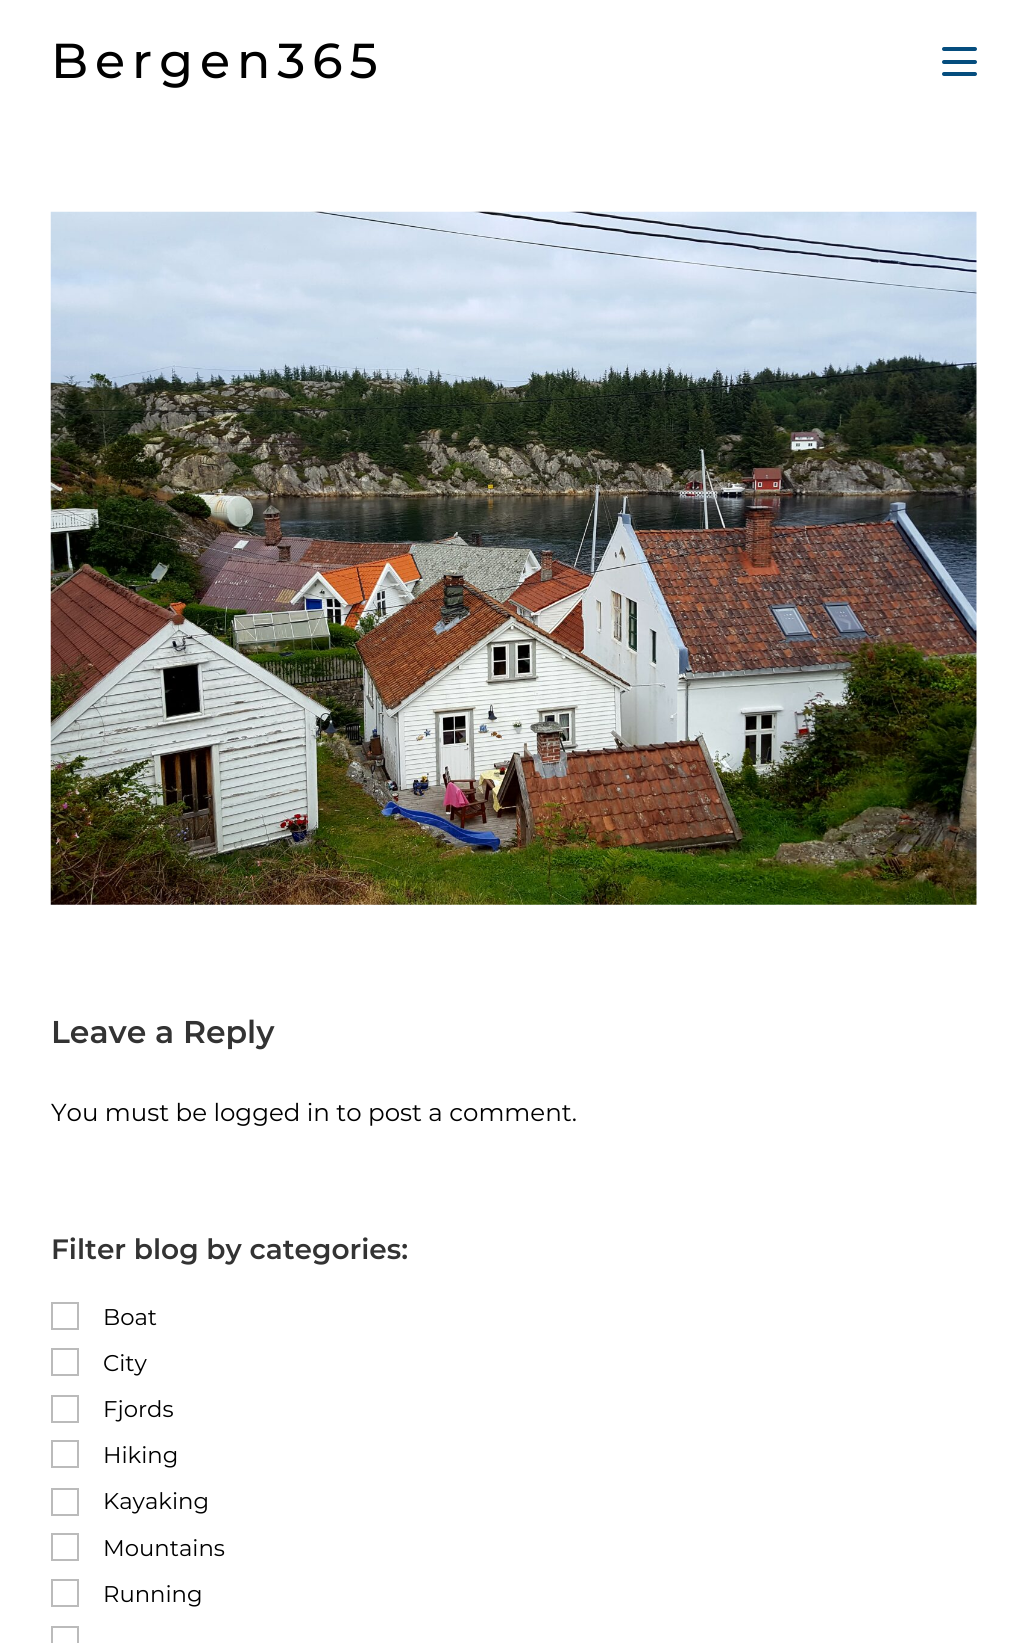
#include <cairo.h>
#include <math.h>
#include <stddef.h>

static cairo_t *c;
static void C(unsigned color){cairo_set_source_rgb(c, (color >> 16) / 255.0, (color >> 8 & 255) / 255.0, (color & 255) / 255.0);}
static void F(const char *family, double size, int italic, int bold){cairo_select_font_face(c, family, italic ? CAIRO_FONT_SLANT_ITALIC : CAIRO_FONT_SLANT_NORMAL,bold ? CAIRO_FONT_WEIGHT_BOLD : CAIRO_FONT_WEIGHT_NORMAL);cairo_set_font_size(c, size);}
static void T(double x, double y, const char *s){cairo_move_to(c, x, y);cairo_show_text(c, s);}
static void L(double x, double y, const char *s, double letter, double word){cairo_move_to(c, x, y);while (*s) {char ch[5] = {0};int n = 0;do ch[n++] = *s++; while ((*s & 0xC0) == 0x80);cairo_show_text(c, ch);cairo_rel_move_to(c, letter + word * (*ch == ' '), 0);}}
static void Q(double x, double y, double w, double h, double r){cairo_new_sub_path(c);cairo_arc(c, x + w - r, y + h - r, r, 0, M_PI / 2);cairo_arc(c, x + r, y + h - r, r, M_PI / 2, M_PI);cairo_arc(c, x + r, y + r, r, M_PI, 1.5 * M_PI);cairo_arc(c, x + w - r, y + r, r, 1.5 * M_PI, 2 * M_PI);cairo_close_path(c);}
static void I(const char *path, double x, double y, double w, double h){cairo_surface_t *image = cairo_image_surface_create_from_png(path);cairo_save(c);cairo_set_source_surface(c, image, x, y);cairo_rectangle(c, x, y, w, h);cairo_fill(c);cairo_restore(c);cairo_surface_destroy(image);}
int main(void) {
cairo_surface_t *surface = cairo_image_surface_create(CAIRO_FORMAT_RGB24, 1026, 1643);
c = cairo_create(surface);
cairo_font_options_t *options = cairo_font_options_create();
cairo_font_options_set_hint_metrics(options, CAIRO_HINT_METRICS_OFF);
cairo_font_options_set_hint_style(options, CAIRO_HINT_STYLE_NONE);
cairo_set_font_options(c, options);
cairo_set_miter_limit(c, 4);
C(0xffffff);
cairo_paint(c);
F("Montserrat Medium",49,0,0);
C(0x000000);
L(51,78,"Bergen365",7,0);
C(0x054d7e);
Q(942,60,35,4,2);
cairo_fill(c);
Q(942,47,35,4,2);
cairo_fill(c);
Q(942,72,35,4,2);
cairo_fill(c);
I("1.png",50,211,927,694);
F("Montserrat SemiBold",31.5,0,0);
C(0x333333);
T(51,1043,"Leave a Reply");
F("Montserrat",24.5,0,0);
C(0x000000);
T(51,1121,"You must be logged in to post a comment.");
F("Montserrat SemiBold",28,0,0);
C(0x333333);
T(51,1259,"Filter blog by categories:");
cairo_rectangle(c,52,1303,26,26);
C(0xbbbbbb);
cairo_stroke(c);
F("Montserrat",22.75,0,0);
C(0x000000);
T(103,1325,"Boat");
cairo_rectangle(c,52,1349,26,26);
C(0xbbbbbb);
cairo_stroke(c);
C(0x000000);
T(103,1371,"City");
cairo_rectangle(c,52,1396,26,26);
C(0xbbbbbb);
cairo_stroke(c);
C(0x000000);
T(103,1417,"Fjords");
cairo_rectangle(c,52,1441,26,26);
C(0xbbbbbb);
cairo_stroke(c);
C(0x000000);
T(103,1463,"Hiking");
cairo_rectangle(c,52,1489,26,26);
C(0xbbbbbb);
cairo_stroke(c);
C(0x000000);
T(103,1509,"Kayaking");
cairo_rectangle(c,52,1534,26,26);
C(0xbbbbbb);
cairo_stroke(c);
C(0x000000);
T(103,1556,"Mountains");
cairo_rectangle(c,52,1580,26,26);
C(0xbbbbbb);
cairo_stroke(c);
C(0x000000);
T(103,1602,"Running");
cairo_rectangle(c,52,1627,26,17);
C(0xbbbbbb);
cairo_stroke(c);
cairo_surface_write_to_png(surface, "o.png");
cairo_font_options_destroy(options);
cairo_destroy(c);
cairo_surface_destroy(surface);
return 0;
}
